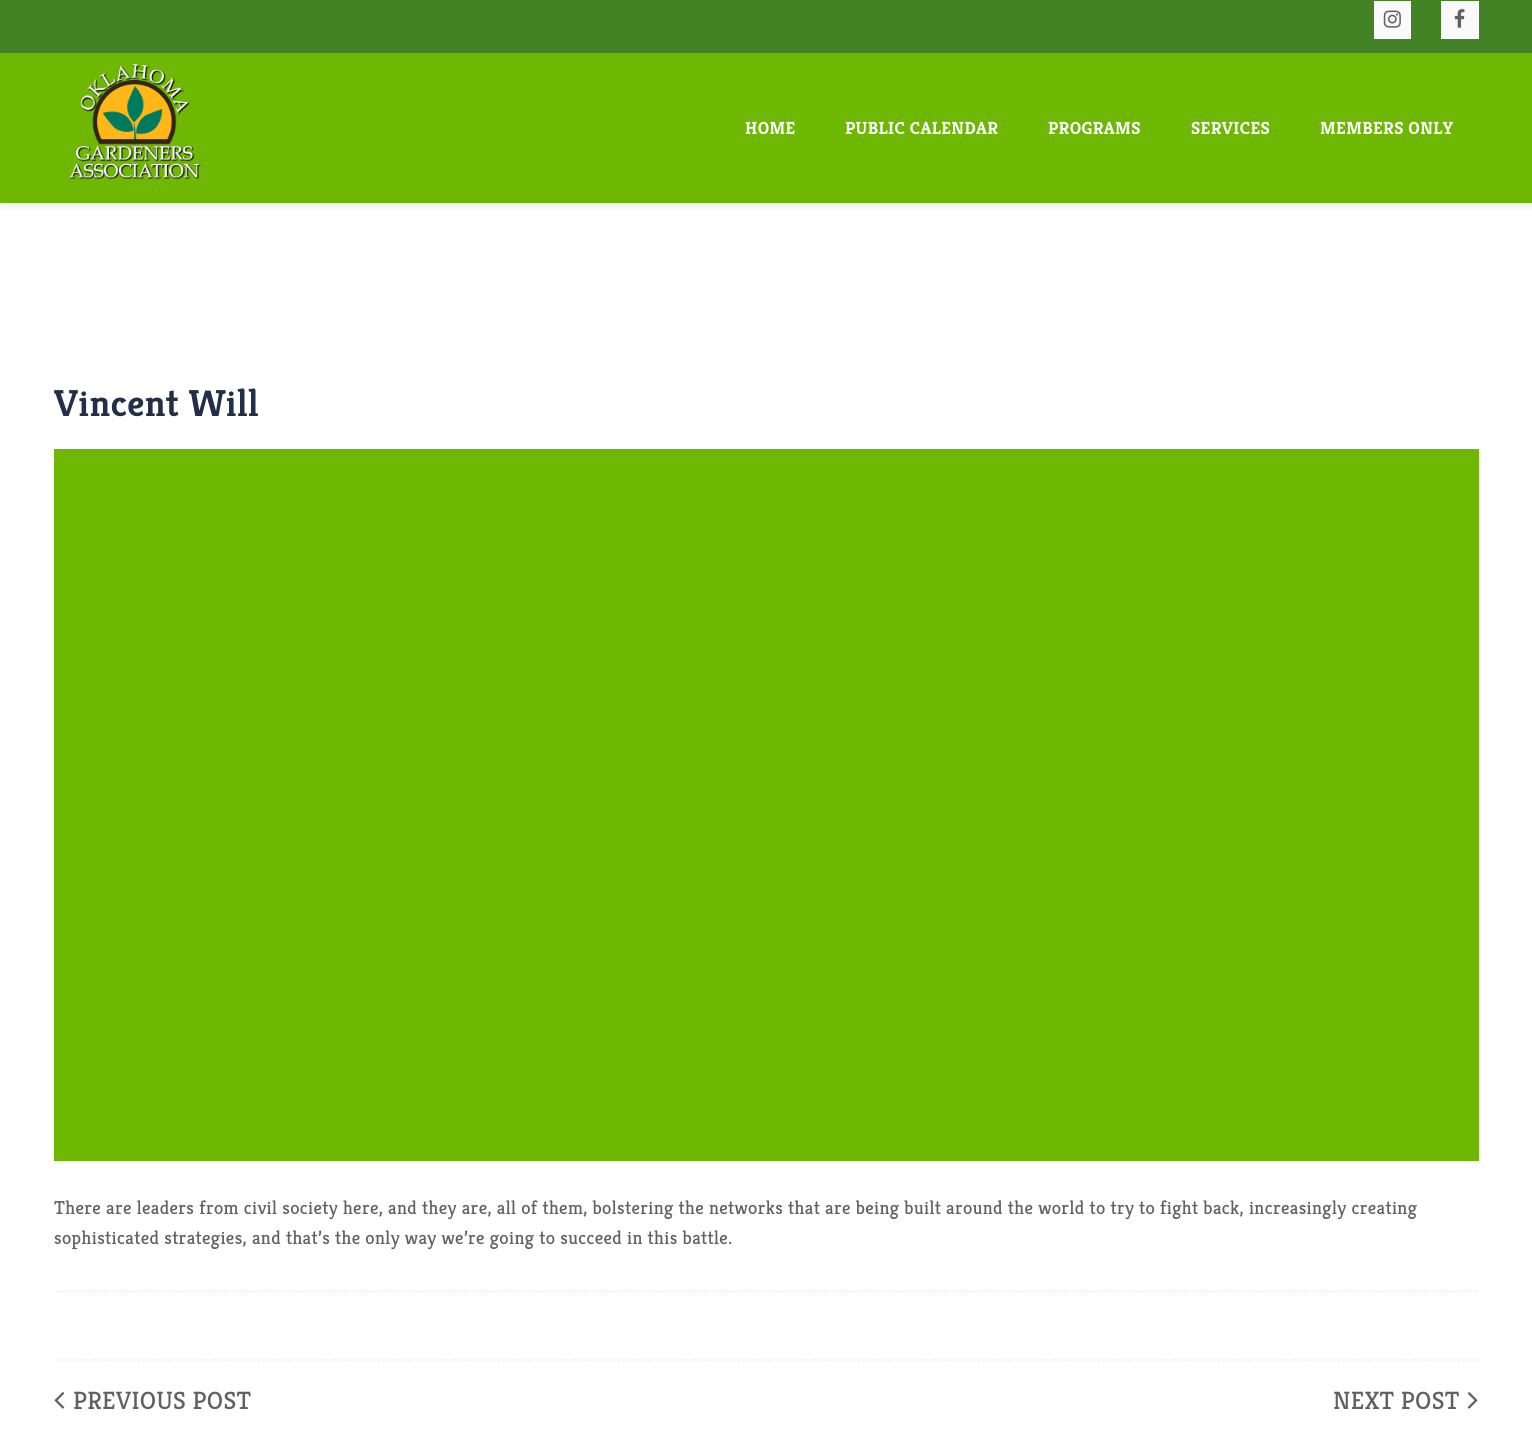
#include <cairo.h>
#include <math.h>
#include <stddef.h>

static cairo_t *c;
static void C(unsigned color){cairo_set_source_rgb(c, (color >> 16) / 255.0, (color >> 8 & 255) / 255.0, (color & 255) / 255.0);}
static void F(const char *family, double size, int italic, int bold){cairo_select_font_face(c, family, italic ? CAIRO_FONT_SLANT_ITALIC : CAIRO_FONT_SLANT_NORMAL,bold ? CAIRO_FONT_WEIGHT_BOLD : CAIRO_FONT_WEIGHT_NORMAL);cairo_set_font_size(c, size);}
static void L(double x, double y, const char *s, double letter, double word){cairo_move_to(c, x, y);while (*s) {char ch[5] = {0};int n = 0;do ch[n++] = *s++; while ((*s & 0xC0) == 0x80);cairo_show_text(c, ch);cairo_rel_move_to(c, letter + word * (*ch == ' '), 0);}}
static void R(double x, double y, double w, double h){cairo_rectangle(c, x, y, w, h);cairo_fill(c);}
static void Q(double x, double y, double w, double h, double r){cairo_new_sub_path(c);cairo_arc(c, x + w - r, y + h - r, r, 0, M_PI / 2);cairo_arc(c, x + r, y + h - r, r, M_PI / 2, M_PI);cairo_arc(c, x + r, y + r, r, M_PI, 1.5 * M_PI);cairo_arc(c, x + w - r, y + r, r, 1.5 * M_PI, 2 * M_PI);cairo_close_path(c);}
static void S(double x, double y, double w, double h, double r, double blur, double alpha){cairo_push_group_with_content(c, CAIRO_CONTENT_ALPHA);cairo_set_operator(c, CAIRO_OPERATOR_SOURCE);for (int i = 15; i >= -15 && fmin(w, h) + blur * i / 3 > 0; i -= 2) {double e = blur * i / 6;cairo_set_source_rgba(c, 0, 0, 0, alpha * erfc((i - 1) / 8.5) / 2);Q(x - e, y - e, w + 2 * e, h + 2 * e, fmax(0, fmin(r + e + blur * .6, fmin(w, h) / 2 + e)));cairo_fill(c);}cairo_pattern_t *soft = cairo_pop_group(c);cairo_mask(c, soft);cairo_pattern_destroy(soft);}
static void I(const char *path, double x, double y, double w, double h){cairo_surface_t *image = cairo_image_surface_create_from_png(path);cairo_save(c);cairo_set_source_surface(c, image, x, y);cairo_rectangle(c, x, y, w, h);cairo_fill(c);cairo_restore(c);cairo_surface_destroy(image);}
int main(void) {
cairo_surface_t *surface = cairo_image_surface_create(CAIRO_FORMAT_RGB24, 1532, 1453);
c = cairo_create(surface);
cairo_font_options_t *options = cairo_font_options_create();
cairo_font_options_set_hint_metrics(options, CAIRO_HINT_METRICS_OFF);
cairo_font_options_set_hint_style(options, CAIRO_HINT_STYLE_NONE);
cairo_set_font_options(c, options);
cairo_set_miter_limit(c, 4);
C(0xffffff);
cairo_paint(c);
C(0x000000);
S(1,55,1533,150,0,4.5,.1);
C(0x448325);
R(0,0,1532,53);
C(0xfafafa);
R(1374,1,37,38);
I("1.png",1383,10,18,18);
R(1441,1,38,38);
I("2.png",1454,9,11,19);
C(0x6eb804);
R(0,53,1532,150);
I("3.png",69,64,132,115);
F("Kreon",17.5,0,1);
C(0xffffff);
L(745,134,"HOME",.38,0);
L(845,134,"PUBLIC CALENDAR",.38,0);
L(1048,134,"PROGRAMS",.38,0);
L(1191,134,"SERVICES",.38,0);
L(1320,134,"MEMBERS ONLY",.38,0);
F("Kreon",37.5,0,1);
C(0x213047);
L(54,416,"Vincent Will",.38,0);
C(0x6eb804);
R(54,449,1425,712);
F("Kreon",18.75,0,0);
C(0x616161);
L(54,1214,"There are leaders from civil society here, and they are, all of them, bolstering the networks that are being built around the world to try to fight back, increasingly creating",.38,0);
L(54,1244,"sophisticated strategies, and that’s the only way we’re going to succeed in this battle.",.38,0);
I("4.png",54,1290,1425,3);
I("5.png",54,1358,1425,4);
I("6.png",54,1392,11,17);
F("Kreon",25,0,0);
L(73,1409,"PREVIOUS POST",.38,0);
L(1333,1409,"NEXT POST",.38,0);
I("7.png",1467,1392,11,17);
cairo_surface_write_to_png(surface, "o.png");
cairo_font_options_destroy(options);
cairo_destroy(c);
cairo_surface_destroy(surface);
return 0;
}
